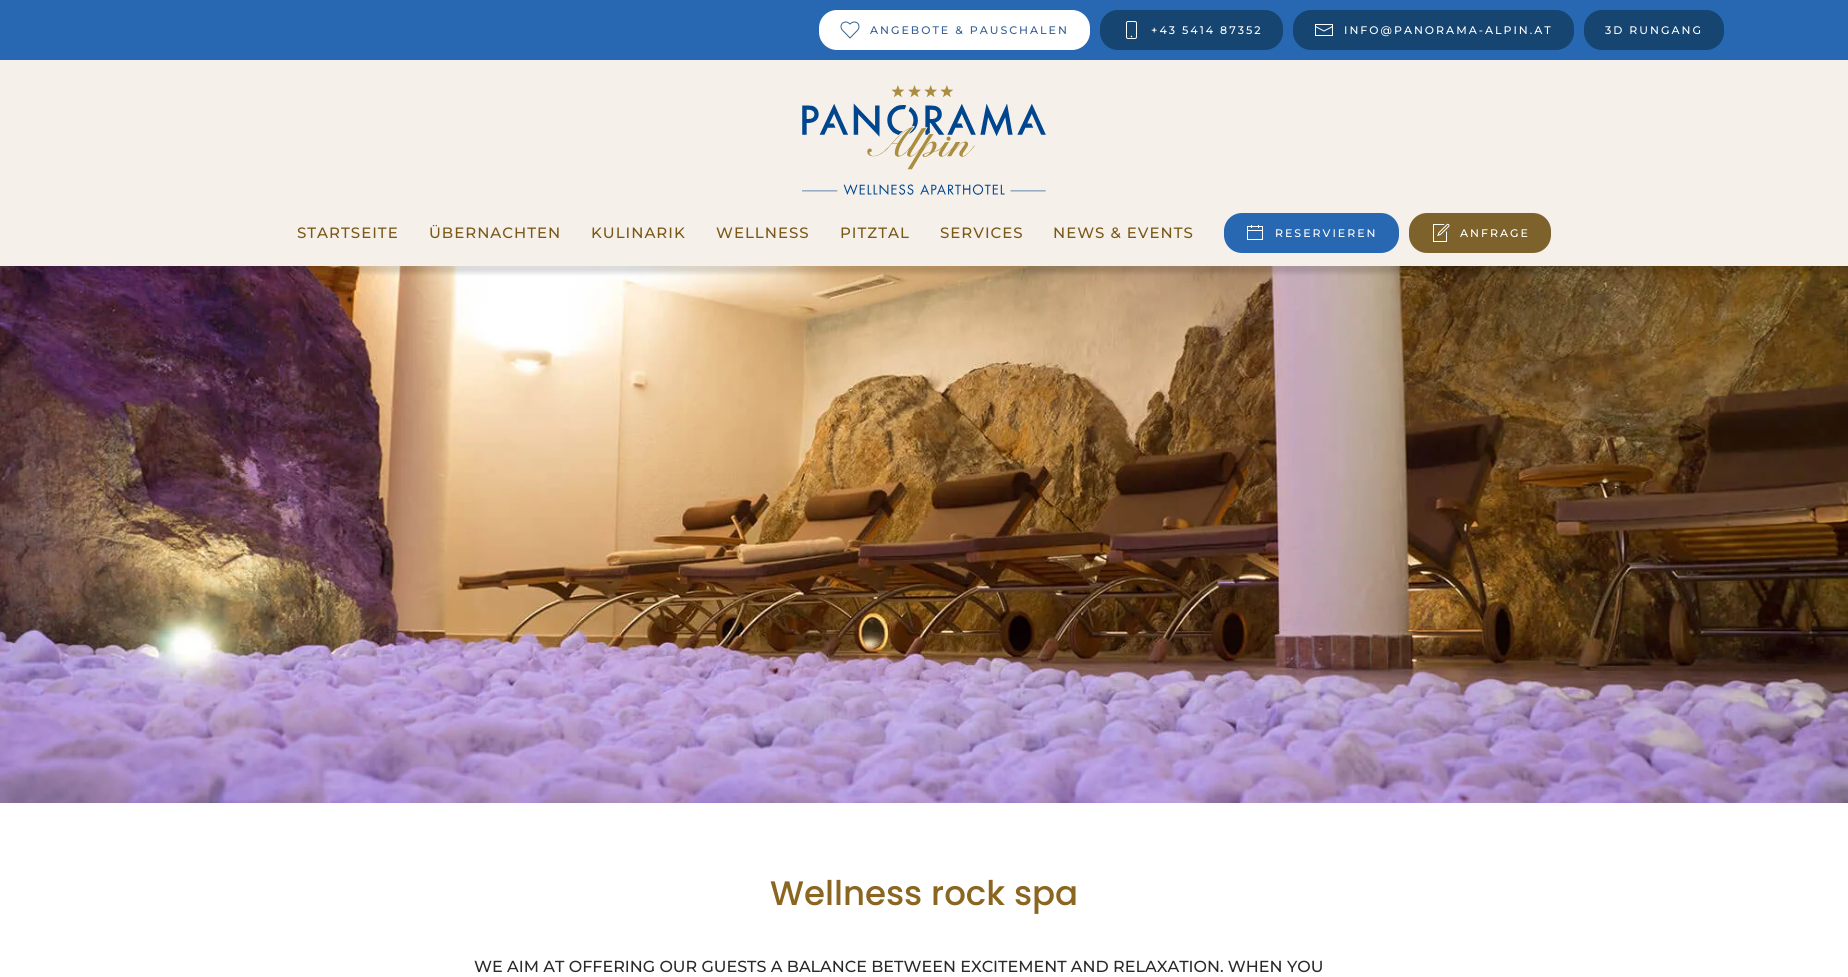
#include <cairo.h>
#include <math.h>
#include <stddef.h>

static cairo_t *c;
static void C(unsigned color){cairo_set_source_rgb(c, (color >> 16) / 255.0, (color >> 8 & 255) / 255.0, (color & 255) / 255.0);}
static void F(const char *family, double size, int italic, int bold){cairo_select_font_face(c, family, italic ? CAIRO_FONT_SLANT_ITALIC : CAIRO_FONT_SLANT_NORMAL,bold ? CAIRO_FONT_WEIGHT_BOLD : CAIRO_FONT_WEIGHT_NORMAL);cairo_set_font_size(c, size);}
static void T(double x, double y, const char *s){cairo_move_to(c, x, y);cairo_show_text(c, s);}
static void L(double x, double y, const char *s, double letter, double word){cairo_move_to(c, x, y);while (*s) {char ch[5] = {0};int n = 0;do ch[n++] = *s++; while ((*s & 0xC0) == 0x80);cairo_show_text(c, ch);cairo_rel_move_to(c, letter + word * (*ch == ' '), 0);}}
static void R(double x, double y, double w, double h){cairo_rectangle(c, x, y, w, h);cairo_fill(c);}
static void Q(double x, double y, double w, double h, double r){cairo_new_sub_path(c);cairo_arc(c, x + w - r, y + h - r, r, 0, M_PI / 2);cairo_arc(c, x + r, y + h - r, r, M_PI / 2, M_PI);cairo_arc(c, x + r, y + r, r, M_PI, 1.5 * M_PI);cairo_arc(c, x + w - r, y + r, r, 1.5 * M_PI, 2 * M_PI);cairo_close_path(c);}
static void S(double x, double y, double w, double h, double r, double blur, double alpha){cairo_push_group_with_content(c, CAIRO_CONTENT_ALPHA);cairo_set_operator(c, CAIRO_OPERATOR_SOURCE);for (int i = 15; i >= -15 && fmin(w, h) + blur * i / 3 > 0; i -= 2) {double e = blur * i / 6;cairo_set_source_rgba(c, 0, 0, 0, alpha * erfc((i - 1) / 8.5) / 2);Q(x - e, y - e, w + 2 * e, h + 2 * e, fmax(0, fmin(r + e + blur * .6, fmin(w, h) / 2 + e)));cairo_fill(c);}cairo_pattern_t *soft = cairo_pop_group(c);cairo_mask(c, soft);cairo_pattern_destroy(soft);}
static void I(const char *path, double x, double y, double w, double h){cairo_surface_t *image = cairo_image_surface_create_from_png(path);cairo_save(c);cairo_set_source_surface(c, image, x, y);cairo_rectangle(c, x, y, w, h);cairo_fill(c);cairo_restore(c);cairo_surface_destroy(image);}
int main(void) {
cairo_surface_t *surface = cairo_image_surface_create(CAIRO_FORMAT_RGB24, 1848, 977);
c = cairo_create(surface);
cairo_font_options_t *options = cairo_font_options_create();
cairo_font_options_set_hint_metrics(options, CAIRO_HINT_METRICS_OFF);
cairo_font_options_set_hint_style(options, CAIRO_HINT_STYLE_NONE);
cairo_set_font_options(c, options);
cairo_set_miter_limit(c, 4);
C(0xffffff);
cairo_paint(c);
C(0x2868b3);
R(0,0,1848,60);
C(0xffffff);
Q(819,10,271,40,18);
cairo_fill(c);
I("1.png",840,21,20,18);
F("Montserrat Thin",11,0,0);
C(0x366295);
L(870,34,"ANGEBOTE & PAUSCHALEN",2,0);
C(0x154570);
Q(1100,10,183,40,18);
cairo_fill(c);
I("2.png",1126,21,11,18);
C(0xffffff);
L(1151,34,"+43 5414 87352",2,0);
C(0x154570);
Q(1293,10,281,40,18);
cairo_fill(c);
I("3.png",1315,24,18,12);
C(0xffffff);
L(1344,34,"INFO@PANORAMA-ALPIN.AT",2,0);
C(0x154570);
Q(1584,10,140,40,18);
cairo_fill(c);
C(0xffffff);
L(1605,34,"3D RUNGANG",2,0);
I("7.png",0,266,1848,537);
C(0x000000);
S(2,203,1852,70,0,2,.14);
C(0xf6f0eb);
R(0,60,1848,206);
I("4.png",802,85,244,110);
F("Montserrat Thin",15,0,0);
C(0x7a5918);
L(297,238,"STARTSEITE",1,0);
L(429,238,"ÜBERNACHTEN",1,0);
L(591,238,"KULINARIK",1,0);
L(716,238,"WELLNESS",1,0);
L(840,238,"PITZTAL",1,0);
L(940,238,"SERVICES",1,0);
L(1053,238,"NEWS & EVENTS",1,0);
C(0x2868b3);
Q(1224,213,175,40,18);
cairo_fill(c);
I("5.png",1247,225,16,15);
F("Montserrat Thin",11,0,0);
C(0xffffff);
L(1275,237,"RESERVIEREN",2,0);
C(0x7d622b);
Q(1409,213,142,40,18);
cairo_fill(c);
I("6.png",1433,223,17,19);
C(0xffffff);
L(1460,237,"ANFRAGE",2,0);
F("Poppins Medium",34,0,0);
C(0x8a6620);
T(770,905,"Wellness rock spa");
F("Montserrat Thin",16,0,0);
C(0x2a2a2c);
T(474,972,"WE AIM AT OFFERING OUR GUESTS A BALANCE BETWEEN EXCITEMENT AND RELAXATION. WHEN YOU");
cairo_surface_write_to_png(surface, "o.png");
cairo_font_options_destroy(options);
cairo_destroy(c);
cairo_surface_destroy(surface);
return 0;
}
